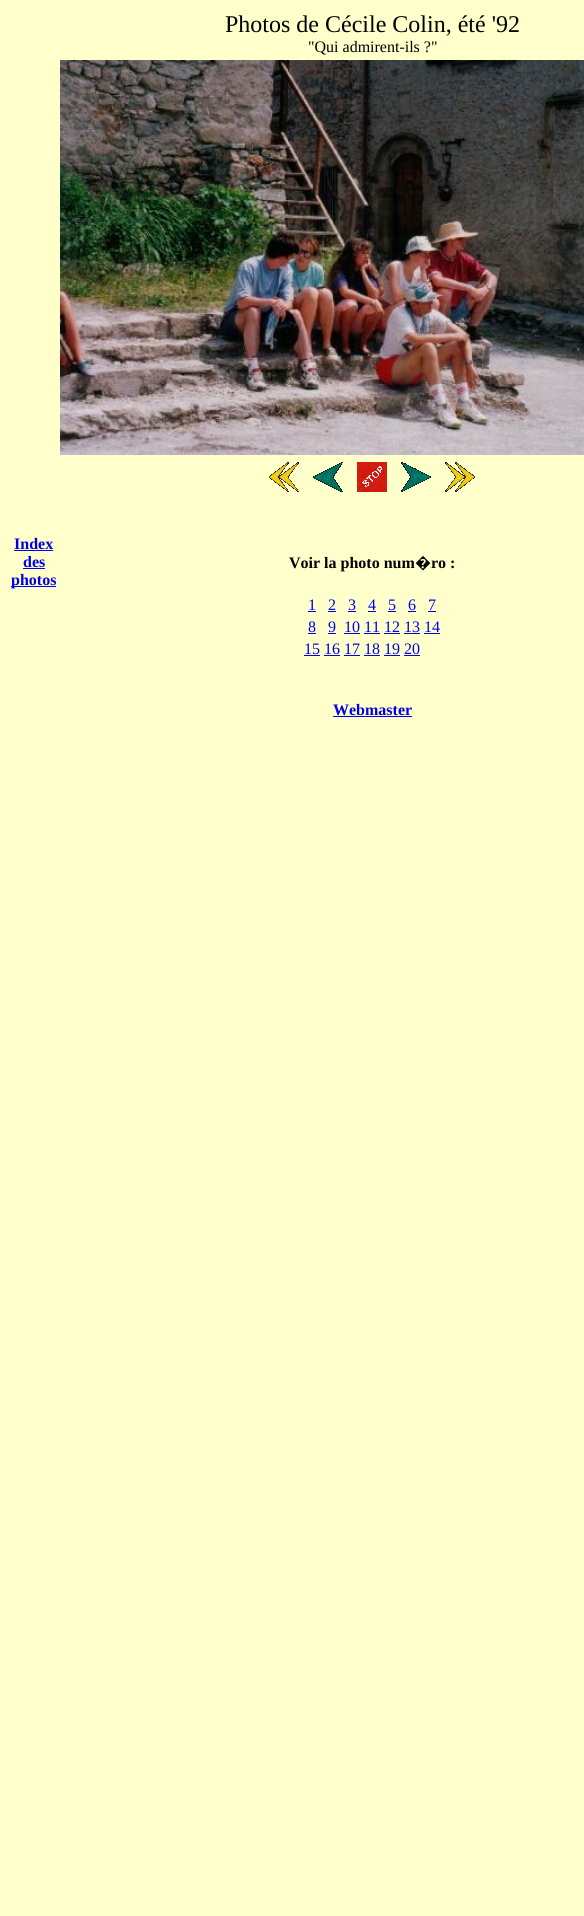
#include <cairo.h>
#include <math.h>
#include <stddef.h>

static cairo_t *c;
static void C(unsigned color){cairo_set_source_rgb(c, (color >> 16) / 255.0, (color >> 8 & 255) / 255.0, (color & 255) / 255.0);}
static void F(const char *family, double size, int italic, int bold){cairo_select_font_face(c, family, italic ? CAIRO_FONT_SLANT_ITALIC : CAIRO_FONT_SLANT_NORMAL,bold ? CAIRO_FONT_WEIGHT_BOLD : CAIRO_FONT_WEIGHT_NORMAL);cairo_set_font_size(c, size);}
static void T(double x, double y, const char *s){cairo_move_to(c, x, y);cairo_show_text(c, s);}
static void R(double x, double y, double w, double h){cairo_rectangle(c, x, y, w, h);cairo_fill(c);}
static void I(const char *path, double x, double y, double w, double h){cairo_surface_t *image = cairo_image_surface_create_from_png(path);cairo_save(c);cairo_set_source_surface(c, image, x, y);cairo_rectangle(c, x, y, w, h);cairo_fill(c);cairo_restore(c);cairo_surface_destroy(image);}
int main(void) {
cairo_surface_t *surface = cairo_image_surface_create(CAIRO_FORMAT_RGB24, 584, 1916);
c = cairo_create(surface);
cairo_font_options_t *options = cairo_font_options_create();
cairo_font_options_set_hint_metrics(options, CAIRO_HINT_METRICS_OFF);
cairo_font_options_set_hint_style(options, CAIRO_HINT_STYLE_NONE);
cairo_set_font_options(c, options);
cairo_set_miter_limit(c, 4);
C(0xffffcb);
cairo_paint(c);
F("Liberation Serif",24,0,0);
C(0x000000);
T(225,32,"Photos de Cécile Colin, été '92");
F("Liberation Serif",16,0,0);
T(308,52,"\"Qui admirent-ils ?\"");
I("1.png",60,60,524,395);
I("2.png",269,462,30,30);
I("3.png",313,462,30,30);
I("4.png",357,462,30,30);
I("5.png",401,462,30,30);
I("6.png",445,462,30,30);
F("Liberation Serif",16,0,1);
C(0x0000ee);
T(14,549,"Index");
R(14,550,39,1);
T(23,567,"des");
R(23,568,22,1);
R(11,586,45,1);
T(11,585,"photos");
C(0x000000);
T(289,568,"Voir la photo num");
F("Noto Sans",16,0,1);
T(415,568,"�");
F("Liberation Serif",16,0,1);
T(431,568,"ro :");
F("Liberation Serif",16,0,0);
C(0x0000ee);
T(308,610,"1");
R(308,611,8,1);
T(328,610,"2");
R(328,611,8,1);
T(348,610,"3");
R(348,611,8,1);
T(368,610,"4");
R(368,611,8,1);
T(388,610,"5");
R(388,611,8,1);
T(408,610,"6");
R(408,611,8,1);
T(428,610,"7");
R(428,611,8,1);
T(308,632,"8");
R(308,633,8,1);
T(328,632,"9");
R(328,633,8,1);
T(344,632,"10 11 12 13 14");
R(344,633,16,1);
R(364,633,16,1);
R(384,633,16,1);
R(404,633,16,1);
R(424,633,16,1);
T(304,654,"15 16 17 18 19 20");
R(304,655,16,1);
R(324,655,16,1);
R(344,655,16,1);
R(364,655,16,1);
R(384,655,16,1);
R(404,655,16,1);
F("Liberation Serif",16,0,1);
T(333,715,"Webmaster");
R(333,716,79,1);
cairo_surface_write_to_png(surface, "o.png");
cairo_font_options_destroy(options);
cairo_destroy(c);
cairo_surface_destroy(surface);
return 0;
}
